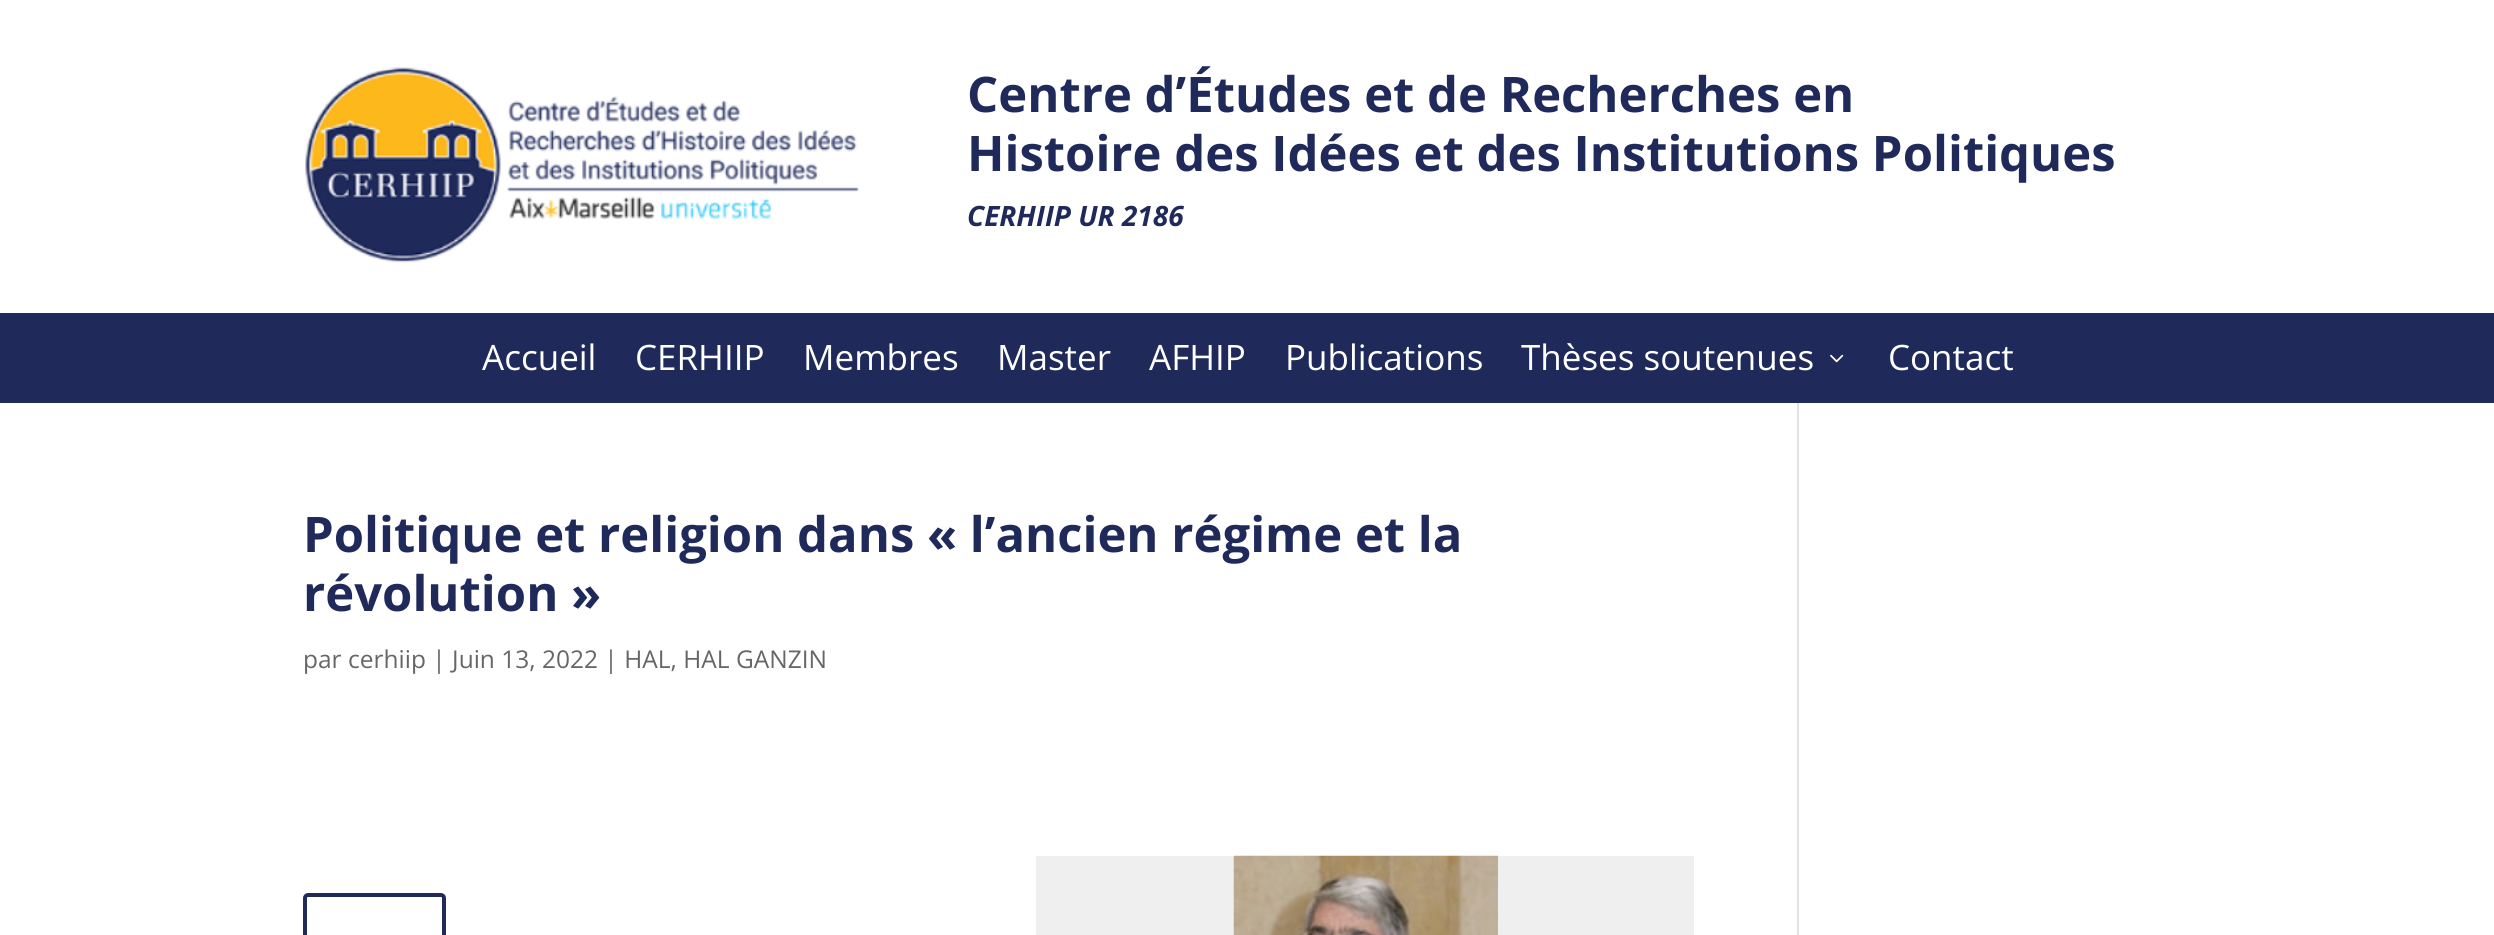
#include <cairo.h>
#include <math.h>
#include <stddef.h>

static cairo_t *c;
static void C(unsigned color){cairo_set_source_rgb(c, (color >> 16) / 255.0, (color >> 8 & 255) / 255.0, (color & 255) / 255.0);}
static void F(const char *family, double size, int italic, int bold){cairo_select_font_face(c, family, italic ? CAIRO_FONT_SLANT_ITALIC : CAIRO_FONT_SLANT_NORMAL,bold ? CAIRO_FONT_WEIGHT_BOLD : CAIRO_FONT_WEIGHT_NORMAL);cairo_set_font_size(c, size);}
static void T(double x, double y, const char *s){cairo_move_to(c, x, y);cairo_show_text(c, s);}
static void R(double x, double y, double w, double h){cairo_rectangle(c, x, y, w, h);cairo_fill(c);}
static void Q(double x, double y, double w, double h, double r){cairo_new_sub_path(c);cairo_arc(c, x + w - r, y + h - r, r, 0, M_PI / 2);cairo_arc(c, x + r, y + h - r, r, M_PI / 2, M_PI);cairo_arc(c, x + r, y + r, r, M_PI, 1.5 * M_PI);cairo_arc(c, x + w - r, y + r, r, 1.5 * M_PI, 2 * M_PI);cairo_close_path(c);}
static void I(const char *path, double x, double y, double w, double h){cairo_surface_t *image = cairo_image_surface_create_from_png(path);cairo_save(c);cairo_set_source_surface(c, image, x, y);cairo_rectangle(c, x, y, w, h);cairo_fill(c);cairo_restore(c);cairo_surface_destroy(image);}
int main(void) {
cairo_surface_t *surface = cairo_image_surface_create(CAIRO_FORMAT_RGB24, 2494, 935);
c = cairo_create(surface);
cairo_font_options_t *options = cairo_font_options_create();
cairo_font_options_set_hint_metrics(options, CAIRO_HINT_METRICS_OFF);
cairo_font_options_set_hint_style(options, CAIRO_HINT_STYLE_NONE);
cairo_set_font_options(c, options);
cairo_set_miter_limit(c, 4);
C(0xffffff);
cairo_paint(c);
I("1.png",305,67,554,196);
F("Open Sans",49,0,1);
C(0x1f2a5b);
T(967,112,"Centre d’Études et de Recherches en");
T(967,171,"Histoire des Idées et des Institutions Politiques");
F("Open Sans",28,1,1);
T(967,226,"CERHIIP UR 2186");
R(0,313,2494,90);
F("Open Sans",35,0,0);
C(0xffffff);
T(482,370,"Accueil");
T(635,370,"CERHIIP");
T(803,370,"Membres");
T(997,370,"Master");
T(1149,370,"AFHIP");
T(1285,370,"Publications");
T(1521,370,"Thèses soutenues");
I("2.png",1830,354,14,9);
T(1888,370,"Contact");
F("Open Sans",49,0,1);
C(0x1f2a5b);
T(303,552,"Politique et religion dans « l’ancien régime et la");
T(303,611,"révolution »");
F("Open Sans",24.5,0,0);
C(0x666666);
T(303,668,"par cerhiip | Juin 13, 2022 | HAL, HAL GANZIN");
Q(305,895,139,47,3);
C(0x1f2a5b);
cairo_set_line_width(c,4);
cairo_stroke(c);
C(0xefefef);
R(1036,856,658,79);
I("3.png",1233,855,265,80);
C(0xe2e2e2);
R(1797,403,2,532);
cairo_surface_write_to_png(surface, "o.png");
cairo_font_options_destroy(options);
cairo_destroy(c);
cairo_surface_destroy(surface);
return 0;
}
